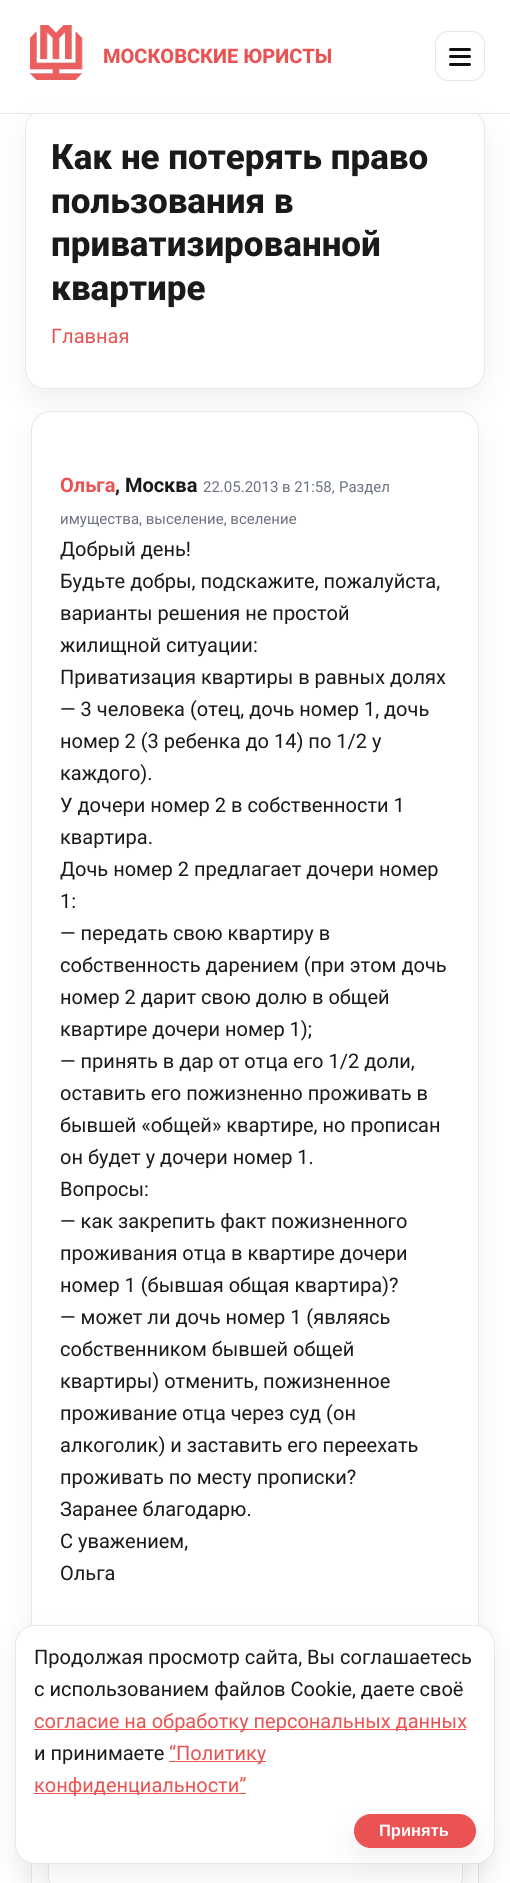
#include <cairo.h>
#include <math.h>
#include <stddef.h>

static cairo_t *c;
static void C(unsigned color){cairo_set_source_rgb(c, (color >> 16) / 255.0, (color >> 8 & 255) / 255.0, (color & 255) / 255.0);}
static void F(const char *family, double size, int italic, int bold){cairo_select_font_face(c, family, italic ? CAIRO_FONT_SLANT_ITALIC : CAIRO_FONT_SLANT_NORMAL,bold ? CAIRO_FONT_WEIGHT_BOLD : CAIRO_FONT_WEIGHT_NORMAL);cairo_set_font_size(c, size);}
static void T(double x, double y, const char *s){cairo_move_to(c, x, y);cairo_show_text(c, s);}
static void R(double x, double y, double w, double h){cairo_rectangle(c, x, y, w, h);cairo_fill(c);}
static void Q(double x, double y, double w, double h, double r){cairo_new_sub_path(c);cairo_arc(c, x + w - r, y + h - r, r, 0, M_PI / 2);cairo_arc(c, x + r, y + h - r, r, M_PI / 2, M_PI);cairo_arc(c, x + r, y + r, r, M_PI, 1.5 * M_PI);cairo_arc(c, x + w - r, y + r, r, 1.5 * M_PI, 2 * M_PI);cairo_close_path(c);}
static void S(double x, double y, double w, double h, double r, double blur, double alpha){cairo_push_group_with_content(c, CAIRO_CONTENT_ALPHA);cairo_set_operator(c, CAIRO_OPERATOR_SOURCE);for (int i = 15; i >= -15 && fmin(w, h) + blur * i / 3 > 0; i -= 2) {double e = blur * i / 6;cairo_set_source_rgba(c, 0, 0, 0, alpha * erfc((i - 1) / 8.5) / 2);Q(x - e, y - e, w + 2 * e, h + 2 * e, fmax(0, fmin(r + e + blur * .6, fmin(w, h) / 2 + e)));cairo_fill(c);}cairo_pattern_t *soft = cairo_pop_group(c);cairo_mask(c, soft);cairo_pattern_destroy(soft);}
static void I(const char *path, double x, double y, double w, double h){cairo_surface_t *image = cairo_image_surface_create_from_png(path);cairo_save(c);cairo_set_source_surface(c, image, x, y);cairo_rectangle(c, x, y, w, h);cairo_fill(c);cairo_restore(c);cairo_surface_destroy(image);}
int main(void) {
cairo_surface_t *surface = cairo_image_surface_create(CAIRO_FORMAT_RGB24, 510, 1883);
c = cairo_create(surface);
cairo_font_options_t *options = cairo_font_options_create();
cairo_font_options_set_hint_metrics(options, CAIRO_HINT_METRICS_OFF);
cairo_font_options_set_hint_style(options, CAIRO_HINT_STYLE_NONE);
cairo_set_font_options(c, options);
cairo_set_miter_limit(c, 4);
C(0xffffff);
cairo_paint(c);
C(0x000000);
S(25,121,460,280,20,15.5,.06);
C(0xffffff);
Q(25.5,109.5,459,279,19.5);
cairo_fill_preserve(c);
C(0xe5e7eb);
cairo_set_line_width(c,1);
cairo_stroke(c);
C(0xffffff);
R(33,106,444,7);
C(0xe5e7eb);
R(0,113,510,1);
I("1.png",30,25,53,55);
F("Roboto ExtraBold",20,0,0);
C(0xeb5353);
T(103,63,"МОСКОВСКИЕ ЮРИСТЫ");
Q(435.5,31.5,49,49,12.5);
C(0xe5e7eb);
cairo_stroke(c);
C(0x111111);
Q(449,55,22,3,1.5);
cairo_fill(c);
Q(449,48,22,3,1.5);
cairo_fill(c);
Q(449,63,22,3,1.5);
cairo_fill(c);
F("Roboto ExtraBold",35,0,0);
C(0x1a1a1a);
T(51,169,"Как не потерять право");
T(51,213,"пользования в");
T(51,256,"приватизированной");
T(51,300,"квартире");
F("Roboto",20,0,0);
C(0xeb5353);
T(51,343,"Главная");
C(0x000000);
S(31,424,448,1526,20,15.5,.06);
C(0xffffff);
Q(31.5,411.5,447,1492,19.5);
cairo_fill_preserve(c);
C(0xe5e7eb);
cairo_stroke(c);
F("Roboto",20,0,1);
C(0xeb5353);
T(60,492,"Ольга");
C(0x1a1a1a);
T(115,492,", Москва");
F("Roboto",15,0,0);
C(0x6b7280);
T(203,492,"22.05.2013 в 21:58,");
T(339,492,"Раздел");
T(60,524,"имущества, выселение, вселение");
F("Roboto",20,0,0);
C(0x1a1a1a);
T(60,556,"Добрый день!");
T(60,588,"Будьте добры, подскажите, пожалуйста,");
T(60,620,"варианты решения не простой");
T(60,652,"жилищной ситуации:");
T(60,684,"Приватизация квартиры в равных долях");
T(60,716,"— 3 человека (отец, дочь номер 1, дочь");
T(60,748,"номер 2 (3 ребенка до 14) по 1/2 у");
T(60,780,"каждого).");
T(60,812,"У дочери номер 2 в собственности 1");
T(60,844,"квартира.");
T(60,876,"Дочь номер 2 предлагает дочери номер");
T(60,908,"1:");
T(60,940,"— передать свою квартиру в");
T(60,972,"собственность дарением (при этом дочь");
T(60,1004,"номер 2 дарит свою долю в общей");
T(60,1036,"квартире дочери номер 1);");
T(60,1068,"— принять в дар от отца его 1/2 доли,");
T(60,1100,"оставить его пожизненно проживать в");
T(60,1132,"бывшей «общей» квартире, но прописан");
T(60,1164,"он будет у дочери номер 1.");
T(60,1196,"Вопросы:");
T(60,1228,"— как закрепить факт пожизненного");
T(60,1260,"проживания отца в квартире дочери");
T(60,1292,"номер 1 (бывшая общая квартира)?");
T(60,1324,"— может ли дочь номер 1 (являясь");
T(60,1356,"собственником бывшей общей");
T(60,1388,"квартиры) отменить, пожизненное");
T(60,1420,"проживание отца через суд (он");
T(60,1452,"алкоголик) и заставить его переехать");
T(60,1484,"проживать по месту прописки?");
T(60,1516,"Заранее благодарю.");
T(60,1548,"С уважением,");
T(60,1580,"Ольга");
C(0x000000);
S(48,1684,415,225,20,15.5,.06);
C(0xffffff);
Q(48.5,1671.5,414,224,19.5);
cairo_fill_preserve(c);
C(0xe5e7eb);
cairo_stroke(c);
C(0x000000);
S(15,1638,480,238,20,15.5,.06);
C(0xffffff);
Q(15.5,1625.5,479,238,19.5);
cairo_fill_preserve(c);
C(0xe5e7eb);
cairo_stroke(c);
C(0x1a1a1a);
T(34,1664,"Продолжая просмотр сайта, Вы соглашаетесь");
T(34,1696,"с использованием файлов Cookie, даете своё");
C(0xeb5353);
R(34,1729,432,1);
T(34,1728,"согласие на обработку персональных данных");
C(0x1a1a1a);
T(34,1760,"и принимаете");
C(0xeb5353);
R(169,1761,97,1);
T(169,1760,"“Политику");
R(34,1793,212,1);
T(34,1792,"конфиденциальности”");
C(0x000000);
S(354,1826,122,34,17,15.5,.06);
C(0xeb5353);
Q(354.5,1814.5,121,33,16.5);
cairo_fill_preserve(c);
cairo_stroke(c);
F("Liberation Sans",16.5,0,1);
C(0xffffff);
T(379,1836,"Принять");
cairo_surface_write_to_png(surface, "o.png");
cairo_font_options_destroy(options);
cairo_destroy(c);
cairo_surface_destroy(surface);
return 0;
}
